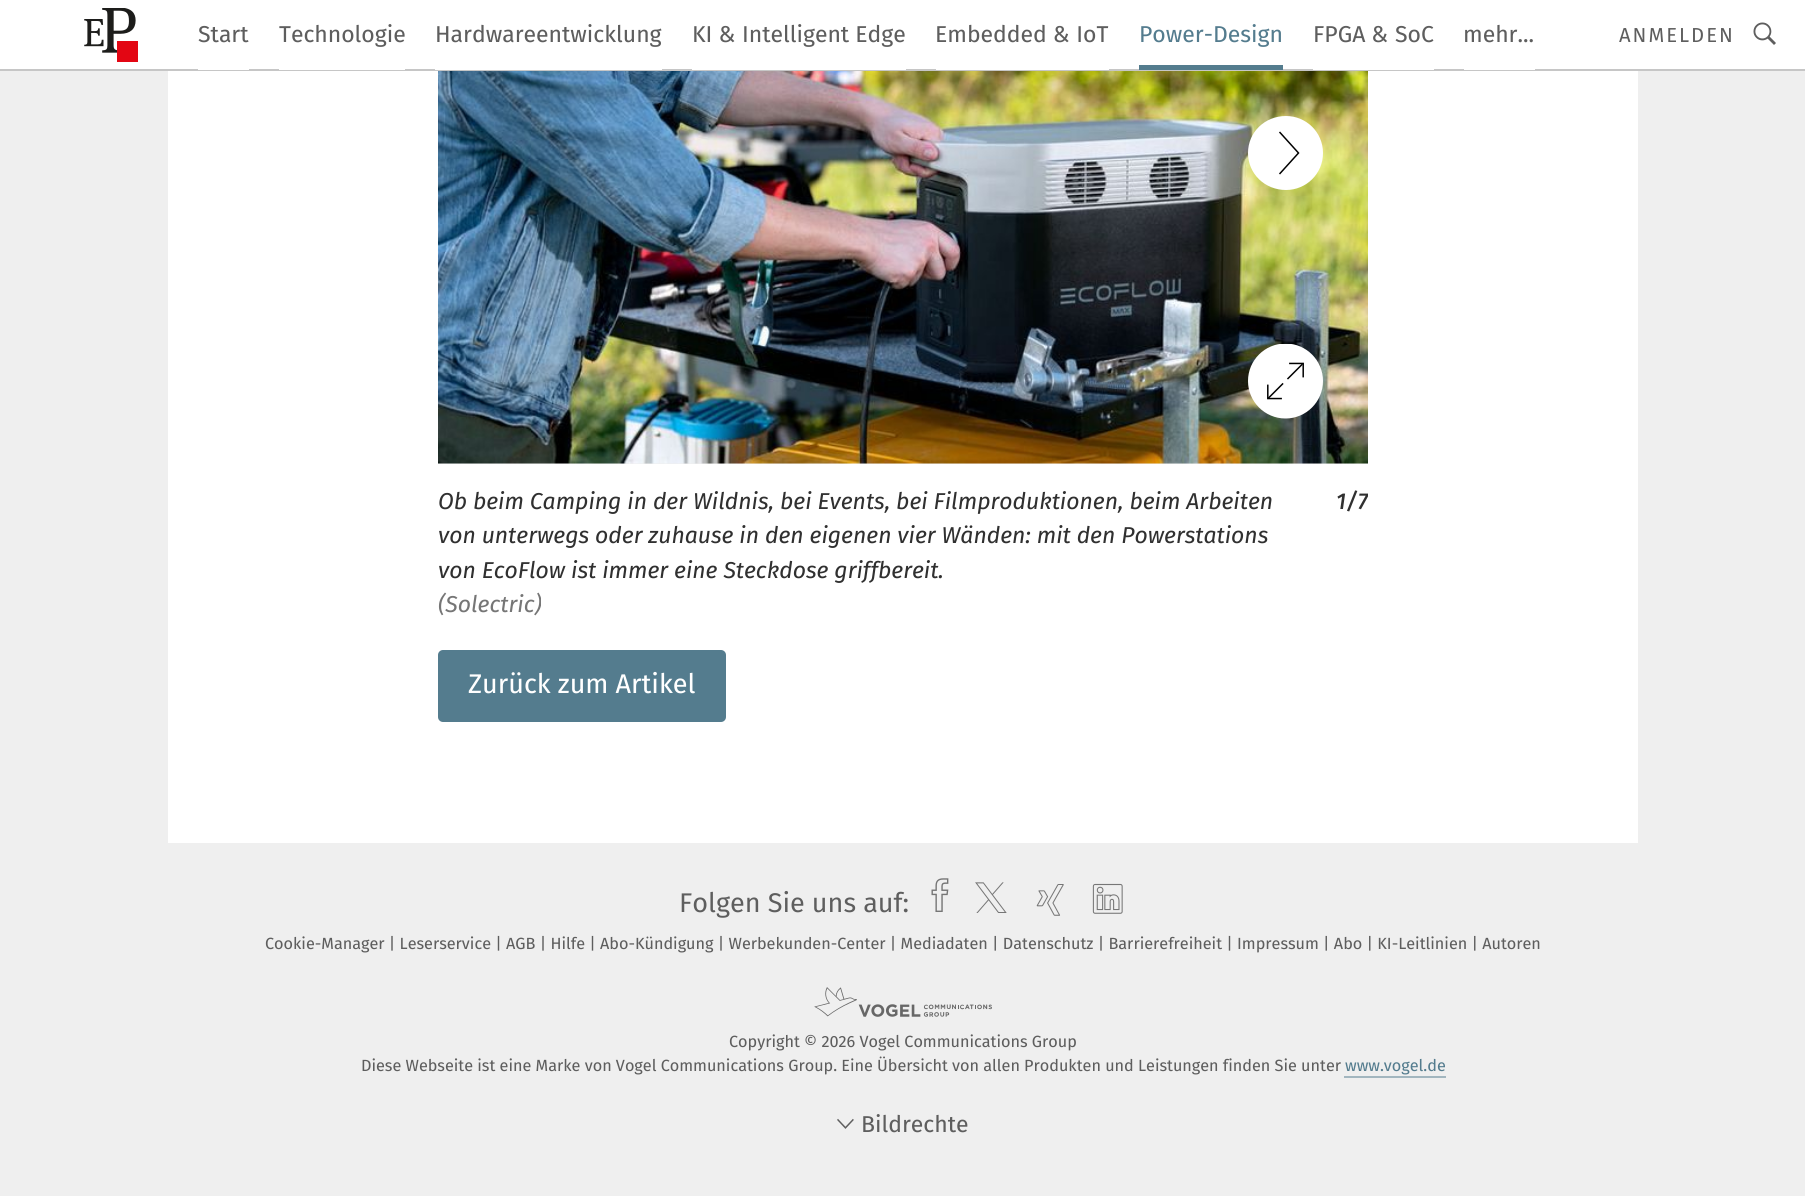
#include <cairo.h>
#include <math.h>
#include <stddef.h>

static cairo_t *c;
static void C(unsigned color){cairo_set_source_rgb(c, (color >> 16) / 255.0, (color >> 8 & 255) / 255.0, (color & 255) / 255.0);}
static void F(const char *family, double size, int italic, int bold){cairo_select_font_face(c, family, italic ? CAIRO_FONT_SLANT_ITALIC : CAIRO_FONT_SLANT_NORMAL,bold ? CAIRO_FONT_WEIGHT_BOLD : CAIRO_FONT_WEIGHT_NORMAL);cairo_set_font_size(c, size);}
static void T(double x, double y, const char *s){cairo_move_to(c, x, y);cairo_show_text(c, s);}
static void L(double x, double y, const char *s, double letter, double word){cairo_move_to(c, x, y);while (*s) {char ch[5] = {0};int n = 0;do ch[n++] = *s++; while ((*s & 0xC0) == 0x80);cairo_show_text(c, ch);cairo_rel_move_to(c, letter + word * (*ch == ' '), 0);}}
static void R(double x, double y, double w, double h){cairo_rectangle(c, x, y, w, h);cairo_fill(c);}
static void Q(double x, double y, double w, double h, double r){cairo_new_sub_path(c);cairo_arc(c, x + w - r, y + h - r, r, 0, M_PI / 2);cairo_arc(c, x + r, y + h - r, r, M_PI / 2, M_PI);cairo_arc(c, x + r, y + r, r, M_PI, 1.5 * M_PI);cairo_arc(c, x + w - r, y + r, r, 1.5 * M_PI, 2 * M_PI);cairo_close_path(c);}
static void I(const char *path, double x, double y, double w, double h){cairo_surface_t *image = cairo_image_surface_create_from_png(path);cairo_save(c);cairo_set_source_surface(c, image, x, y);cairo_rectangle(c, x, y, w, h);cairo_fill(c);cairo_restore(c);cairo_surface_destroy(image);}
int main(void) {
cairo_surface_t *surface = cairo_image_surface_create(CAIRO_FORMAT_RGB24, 1805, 1196);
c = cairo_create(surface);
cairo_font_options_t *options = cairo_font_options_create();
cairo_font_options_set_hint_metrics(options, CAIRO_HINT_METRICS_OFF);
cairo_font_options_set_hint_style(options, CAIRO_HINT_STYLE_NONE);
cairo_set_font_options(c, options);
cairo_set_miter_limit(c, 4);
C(0xefefef);
cairo_paint(c);
C(0xffffff);
R(168,71,1470,772);
R(0,0,1805,69);
C(0xc6c6c6);
R(0,69,1805,2);
I("1.png",84,8,54,54);
C(0xffffff);
R(198,69,51,1);
F("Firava",22.95,0,0);
C(0x5e5e5e);
T(198,42,"Start");
C(0xffffff);
R(279,69,126,1);
C(0x5e5e5e);
T(279,42,"Technologie");
C(0xffffff);
R(435,69,227,1);
C(0x5e5e5e);
T(435,42,"Hardwareentwicklung");
C(0xffffff);
R(692,69,214,1);
C(0x5e5e5e);
T(692,42,"KI & Intelligent Edge");
C(0xffffff);
R(936,69,173,1);
C(0x5e5e5e);
T(935,42,"Embedded & IoT");
C(0x547c8e);
R(1139,65,144,5);
T(1139,42,"Power-Design");
C(0xffffff);
R(1313,69,121,1);
C(0x5e5e5e);
T(1313,42,"FPGA & SoC");
C(0xffffff);
R(1464,69,71,1);
C(0x5e5e5e);
T(1463,42,"mehr...");
F("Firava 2",20.25,0,0);
L(1619,42,"ANMELDEN",2,0);
I("2.png",1753,22,23,23);
C(0xefefef);
R(438,463,930,1);
I("3.png",438,71,930,393);
C(0xffffff);
cairo_new_path(c);
cairo_move_to(c,1286,116);
cairo_curve_to(c,1265,116,1248,132,1248,153);
cairo_curve_to(c,1248,174,1265,190,1286,190);
cairo_curve_to(c,1306,190,1323,174,1323,153);
cairo_curve_to(c,1323,132,1306,116,1286,116);
cairo_fill(c);
cairo_new_path(c);
cairo_move_to(c,1279.5,174);
cairo_line_to(c,1298.5,153);
cairo_line_to(c,1279.5,132);
C(0x000000);
cairo_set_line_width(c,1.5);
cairo_stroke(c);
I("4.png",1248,344,75,75);
F("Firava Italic",22.95,1,0);
C(0x303030);
T(438,509,"Ob beim Camping in der Wildnis, bei Events, bei Filmproduktionen, beim Arbeiten");
T(438,543,"von unterwegs oder zuhause in den eigenen vier Wänden: mit den Powerstations");
T(438,578,"von EcoFlow ist immer eine Steckdose griffbereit.");
C(0x767676);
T(438,612,"(Solectric)");
cairo_save(c);
cairo_rectangle(c,438,0,930,623);
cairo_clip(c);
F("Firava Italic Medium",22.95,1,0);
C(0x303030);
T(1336,509,"1/7");
cairo_restore(c);
C(0x547c8e);
Q(438,650,288,72,5);
cairo_fill(c);
F("Firava",27,0,0);
C(0xffffff);
T(468,693,"Zurück zum Artikel");
F("Firava 2",27,0,0);
C(0x5e5e5e);
T(679,912,"Folgen Sie uns auf:");
I("5.png",931,878,18,34);
I("6.png",975,882,32,31);
I("7.png",1036,884,28,32);
I("8.png",1092,883,31,31);
F("Firava",16.2,0,0);
T(265,949,"Cookie-Manager | Leserservice | AGB | Hilfe | Abo-Kündigung | Werbekunden-Center | Mediadaten | Datenschutz | Barrierefreiheit | Impressum | Abo | KI-Leitlinien | Autoren");
I("9.png",814,987,178,30);
T(729,1047,"Copyright © 2026 Vogel Communications Group");
T(361,1071,"Diese Webseite ist eine Marke von Vogel Communications Group. Eine Übersicht von allen Produkten und Leistungen finden Sie unter");
C(0x547c8e);
T(1345,1071,"www.vogel.de");
C(0xa2b6bf);
R(1344,1076,102,2);
I("10.png",837,1118,17,11);
F("Firava",22.95,0,0);
C(0x5e5e5e);
T(861,1132,"Bildrechte");
cairo_surface_write_to_png(surface, "o.png");
cairo_font_options_destroy(options);
cairo_destroy(c);
cairo_surface_destroy(surface);
return 0;
}
